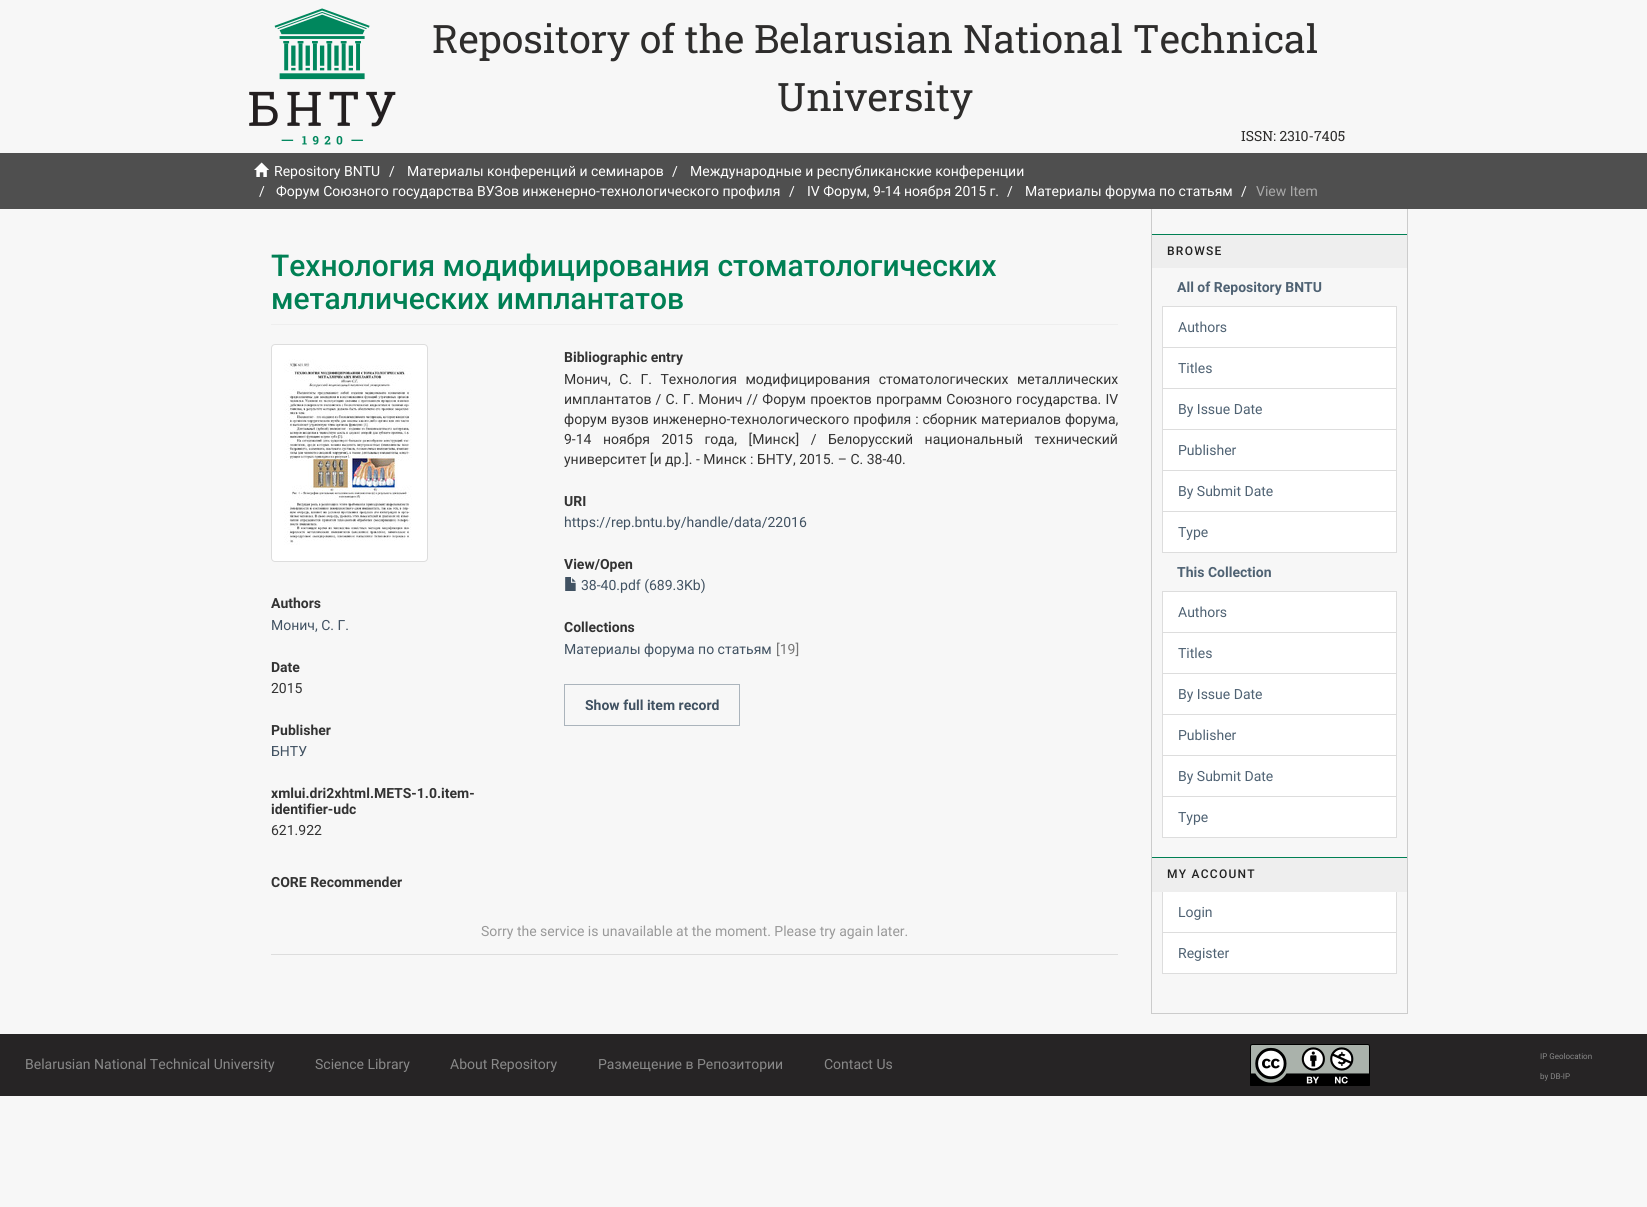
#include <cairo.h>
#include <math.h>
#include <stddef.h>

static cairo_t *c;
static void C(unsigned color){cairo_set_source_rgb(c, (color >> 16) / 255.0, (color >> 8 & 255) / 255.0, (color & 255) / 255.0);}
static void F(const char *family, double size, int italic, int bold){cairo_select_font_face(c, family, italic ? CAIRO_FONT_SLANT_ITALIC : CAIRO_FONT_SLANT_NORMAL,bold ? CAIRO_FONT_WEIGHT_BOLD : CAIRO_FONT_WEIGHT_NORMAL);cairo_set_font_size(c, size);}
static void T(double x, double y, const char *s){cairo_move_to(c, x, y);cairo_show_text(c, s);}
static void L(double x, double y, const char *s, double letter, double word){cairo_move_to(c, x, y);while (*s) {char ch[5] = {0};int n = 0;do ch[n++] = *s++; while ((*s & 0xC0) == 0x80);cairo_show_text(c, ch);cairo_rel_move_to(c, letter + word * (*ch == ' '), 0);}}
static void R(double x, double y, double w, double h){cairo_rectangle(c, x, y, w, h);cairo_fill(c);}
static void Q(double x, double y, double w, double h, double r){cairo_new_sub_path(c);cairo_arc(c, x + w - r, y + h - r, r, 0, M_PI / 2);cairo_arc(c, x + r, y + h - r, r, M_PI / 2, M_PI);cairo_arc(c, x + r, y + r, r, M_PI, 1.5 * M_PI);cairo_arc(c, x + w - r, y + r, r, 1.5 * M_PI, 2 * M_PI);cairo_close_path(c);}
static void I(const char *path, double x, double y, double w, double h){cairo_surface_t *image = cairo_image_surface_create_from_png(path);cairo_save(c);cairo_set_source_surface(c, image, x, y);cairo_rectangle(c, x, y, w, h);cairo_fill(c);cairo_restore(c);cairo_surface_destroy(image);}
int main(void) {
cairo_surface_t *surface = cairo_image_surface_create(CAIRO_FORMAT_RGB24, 1647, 1207);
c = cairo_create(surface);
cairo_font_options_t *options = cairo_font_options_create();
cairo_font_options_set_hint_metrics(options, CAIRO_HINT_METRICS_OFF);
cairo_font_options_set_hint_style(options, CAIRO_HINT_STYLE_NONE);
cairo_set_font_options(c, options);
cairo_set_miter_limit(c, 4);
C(0xf7f7f7);
cairo_paint(c);
I("1.png",249,8,147,137);
F("Roboto Slab",39.2,0,0);
C(0x2e2d2c);
T(432,53,"Repository of the Belarusian National Technical");
T(777,111,"University");
F("Roboto Slab",14,0,0);
T(1241,141,"ISSN: 2310-7405");
C(0x4f4f4f);
R(0,153,1647,56);
I("2.png",254,162,15,15);
F("Roboto",14,0,0);
C(0xffffff);
T(274,176,"Repository BNTU");
T(389,176,"/");
T(407,176,"Материалы конференций и семинаров");
T(672,176,"/");
T(690,176,"Международные и республиканские конференции");
T(259,196,"/");
T(276,196,"Форум Союзного государства ВУЗов инженерно-технологического профиля");
T(789,196,"/");
T(807,196,"IV Форум, 9-14 ноября 2015 г.");
T(1007,196,"/");
T(1025,196,"Материалы форума по статьям");
T(1241,196,"/");
C(0xa9a9a9);
T(1256,196,"View Item");
C(0xeeeeee);
R(271,324,847,1);
F("Roboto Medium",30,0,0);
C(0x008054);
T(271,276,"Технология модифицирования стоматологических");
T(271,309,"металлических имплантатов");
C(0xffffff);
Q(271.5,344.5,156,217,3.5);
cairo_fill_preserve(c);
C(0xdddddd);
cairo_set_line_width(c,1);
cairo_stroke(c);
I("3.png",284,359,128,186);
F("Roboto",14,0,1);
C(0x333333);
T(271,608,"Authors");
F("Roboto",14,0,0);
C(0x415262);
T(271,630,"Монич, С. Г.");
F("Roboto",14,0,1);
C(0x333333);
T(271,672,"Date");
F("Roboto",14,0,0);
T(271,693,"2015");
F("Roboto",14,0,1);
T(271,735,"Publisher");
F("Roboto",14,0,0);
C(0x415262);
T(271,756,"БНТУ");
F("Roboto",14,0,1);
C(0x333333);
T(271,798,"xmlui.dri2xhtml.METS-1.0.item-");
T(271,814,"identifier-udc");
F("Roboto",14,0,0);
T(271,835,"621.922");
F("Roboto",14,0,1);
T(564,362,"Bibliographic entry");
F("Roboto",14,0,0);
L(564,384,"Монич, С. Г. Технология модифицирования стоматологических металлических",0,5);
L(564,404,"имплантатов / С. Г. Монич // Форум проектов программ Союзного государства. IV",0,.75);
L(564,424,"форум вузов инженерно-технологического профиля : сборник материалов форума,",0,.5);
L(564,444,"9-14 ноября 2015 года, [Минск] / Белорусский национальный технический",0,8);
T(564,464,"университет [и др.]. - Минск : БНТУ, 2015. – С. 38-40.");
F("Roboto",14,0,1);
T(564,506,"URI");
F("Roboto",14,0,0);
C(0x415262);
T(564,527,"https://rep.bntu.by/handle/data/22016");
F("Roboto",14,0,1);
C(0x333333);
T(564,569,"View/Open");
I("4.png",565,577,11,14);
F("Roboto",14,0,0);
C(0x415262);
T(581,590,"38-40.pdf (689.3Kb)");
F("Roboto",14,0,1);
C(0x333333);
T(564,632,"Collections");
F("Roboto",14,0,0);
C(0x415262);
T(564,654,"Материалы форума по статьям");
C(0x767676);
T(776,654,"[19]");
cairo_rectangle(c,564.5,684.5,175,41);
C(0xabb4bc);
cairo_stroke(c);
F("Roboto",14,0,1);
C(0x415262);
T(585,710,"Show full item record");
C(0x333333);
T(271,887,"CORE Recommender");
C(0xdddddd);
R(271,954,847,1);
F("Roboto",14,0,0);
C(0x999999);
T(481,936,"Sorry the service is unavailable at the moment. Please try again later.");
C(0xcccccc);
R(1407,209,1,805);
R(1151,1013,257,1);
R(1151,209,1,805);
C(0xeeeeee);
R(1152,235,255,33);
C(0x008054);
R(1152,234,255,1);
F("Roboto Medium",12,0,0);
C(0x222222);
L(1167,255,"BROWSE",1.25,0);
F("Roboto",14,0,1);
C(0x4f6273);
T(1177,292,"All of Repository BNTU");
C(0xffffff);
cairo_rectangle(c,1162.5,306.5,234,41);
cairo_fill_preserve(c);
C(0xdddddd);
cairo_stroke(c);
F("Roboto",14,0,0);
C(0x4f6273);
T(1178,332,"Authors");
C(0xffffff);
cairo_rectangle(c,1162.5,347.5,234,41);
cairo_fill_preserve(c);
C(0xdddddd);
cairo_stroke(c);
C(0x4f6273);
T(1178,373,"Titles");
C(0xffffff);
cairo_rectangle(c,1162.5,388.5,234,41);
cairo_fill_preserve(c);
C(0xdddddd);
cairo_stroke(c);
C(0x4f6273);
T(1178,414,"By Issue Date");
C(0xffffff);
cairo_rectangle(c,1162.5,429.5,234,41);
cairo_fill_preserve(c);
C(0xdddddd);
cairo_stroke(c);
C(0x4f6273);
T(1178,455,"Publisher");
C(0xffffff);
cairo_rectangle(c,1162.5,470.5,234,41);
cairo_fill_preserve(c);
C(0xdddddd);
cairo_stroke(c);
C(0x4f6273);
T(1178,496,"By Submit Date");
C(0xffffff);
cairo_rectangle(c,1162.5,511.5,234,41);
cairo_fill_preserve(c);
C(0xdddddd);
cairo_stroke(c);
C(0x4f6273);
T(1178,537,"Type");
F("Roboto",14,0,1);
T(1177,577,"This Collection");
C(0xffffff);
cairo_rectangle(c,1162.5,591.5,234,41);
cairo_fill_preserve(c);
C(0xdddddd);
cairo_stroke(c);
F("Roboto",14,0,0);
C(0x4f6273);
T(1178,617,"Authors");
C(0xffffff);
cairo_rectangle(c,1162.5,632.5,234,41);
cairo_fill_preserve(c);
C(0xdddddd);
cairo_stroke(c);
C(0x4f6273);
T(1178,658,"Titles");
C(0xffffff);
cairo_rectangle(c,1162.5,673.5,234,41);
cairo_fill_preserve(c);
C(0xdddddd);
cairo_stroke(c);
C(0x4f6273);
T(1178,699,"By Issue Date");
C(0xffffff);
cairo_rectangle(c,1162.5,714.5,234,41);
cairo_fill_preserve(c);
C(0xdddddd);
cairo_stroke(c);
C(0x4f6273);
T(1178,740,"Publisher");
C(0xffffff);
cairo_rectangle(c,1162.5,755.5,234,41);
cairo_fill_preserve(c);
C(0xdddddd);
cairo_stroke(c);
C(0x4f6273);
T(1178,781,"By Submit Date");
C(0xffffff);
cairo_rectangle(c,1162.5,796.5,234,41);
cairo_fill_preserve(c);
C(0xdddddd);
cairo_stroke(c);
C(0x4f6273);
T(1178,822,"Type");
C(0xffffff);
cairo_rectangle(c,1162.5,891.5,234,41);
cairo_fill_preserve(c);
C(0xdddddd);
cairo_stroke(c);
C(0xeeeeee);
R(1152,858,255,34);
C(0x008054);
R(1152,857,255,1);
F("Roboto Medium",12,0,0);
C(0x222222);
L(1167,878,"MY ACCOUNT",1.25,0);
F("Roboto",14,0,0);
C(0x4f6273);
T(1178,917,"Login");
C(0xffffff);
cairo_rectangle(c,1162.5,932.5,234,41);
cairo_fill_preserve(c);
C(0xdddddd);
cairo_stroke(c);
C(0x4f6273);
T(1178,958,"Register");
C(0x262425);
R(0,1034,1647,62);
C(0x898989);
T(25,1069,"Belarusian National Technical University");
T(315,1069,"Science Library");
T(450,1069,"About Repository");
T(598,1069,"Размещение в Репозитории");
T(824,1069,"Contact Us");
I("5.png",1250,1044,120,42);
F("Roboto",8,0,0);
T(1540,1059,"IP Geolocation");
T(1540,1079,"by DB-IP");
cairo_surface_write_to_png(surface, "o.png");
cairo_font_options_destroy(options);
cairo_destroy(c);
cairo_surface_destroy(surface);
return 0;
}
